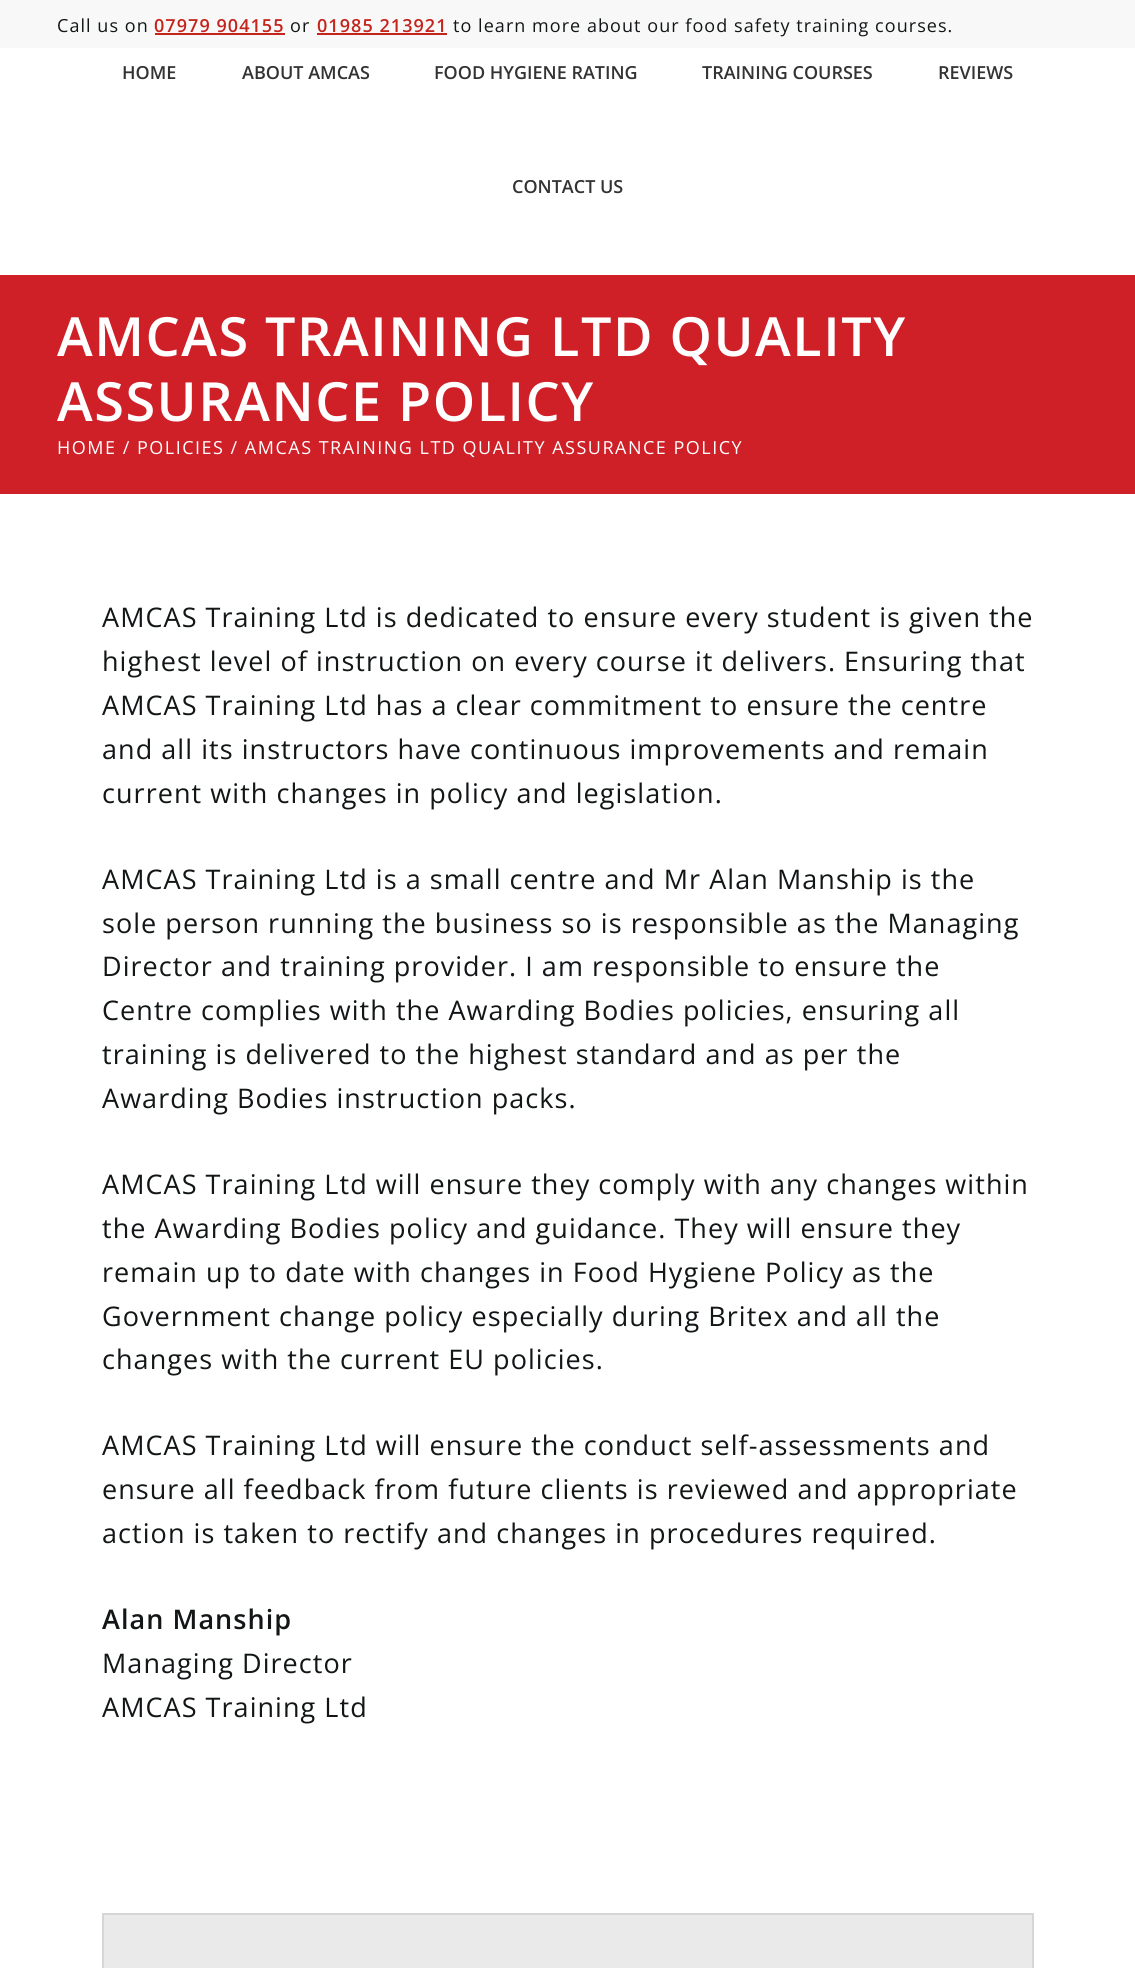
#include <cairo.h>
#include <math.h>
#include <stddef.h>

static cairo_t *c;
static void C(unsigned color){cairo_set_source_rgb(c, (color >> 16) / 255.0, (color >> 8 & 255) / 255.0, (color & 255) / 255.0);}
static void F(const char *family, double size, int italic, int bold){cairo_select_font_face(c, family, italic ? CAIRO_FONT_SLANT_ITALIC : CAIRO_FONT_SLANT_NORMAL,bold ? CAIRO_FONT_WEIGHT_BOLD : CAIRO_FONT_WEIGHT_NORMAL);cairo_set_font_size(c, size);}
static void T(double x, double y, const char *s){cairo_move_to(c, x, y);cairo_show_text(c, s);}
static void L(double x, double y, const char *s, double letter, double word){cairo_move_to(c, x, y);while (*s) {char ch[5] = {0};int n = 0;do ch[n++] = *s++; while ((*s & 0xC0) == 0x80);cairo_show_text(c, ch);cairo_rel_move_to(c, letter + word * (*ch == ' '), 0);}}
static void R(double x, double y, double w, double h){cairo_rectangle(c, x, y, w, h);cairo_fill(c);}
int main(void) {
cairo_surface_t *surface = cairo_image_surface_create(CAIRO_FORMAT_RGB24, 1135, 1968);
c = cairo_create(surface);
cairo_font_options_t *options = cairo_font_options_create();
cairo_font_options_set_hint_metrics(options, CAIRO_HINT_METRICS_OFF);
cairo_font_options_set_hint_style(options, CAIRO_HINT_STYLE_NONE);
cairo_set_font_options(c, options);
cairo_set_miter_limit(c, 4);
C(0xffffff);
cairo_paint(c);
C(0xf8f8f8);
R(0,0,1135,48);
F("Open Sans",18,0,0);
C(0x121617);
L(57,32,"Call us on",1.05,0);
F("Open Sans SemiBold",18,0,0);
C(0xc3251d);
L(154,32,"07979 904155",1.05,0);
R(155,33,130,2);
F("Open Sans",18,0,0);
C(0x121617);
L(290,32,"or",1.05,0);
F("Open Sans SemiBold",18,0,0);
C(0xc3251d);
L(317,32,"01985 213921",1.05,0);
R(317,33,130,2);
F("Open Sans",18,0,0);
C(0x121617);
L(453,32,"to learn more about our food safety training courses.",1.05,0);
F("Open Sans SemiBold",18,0,0);
C(0x333333);
T(122,79,"HOME");
T(242,79,"ABOUT AMCAS");
T(434,79,"FOOD HYGIENE RATING");
T(702,79,"TRAINING COURSES");
T(938,79,"REVIEWS");
T(512,193,"CONTACT US");
C(0xcf2028);
R(0,275,1135,219);
F("Open Sans SemiBold",54,0,0);
C(0xffffff);
L(57,356,"AMCAS TRAINING LTD QUALITY",1.5,0);
L(57,421,"ASSURANCE POLICY",1.5,0);
F("Open Sans",18,0,0);
L(57,454,"HOME / POLICIES / AMCAS TRAINING LTD QUALITY ASSURANCE POLICY",1.5,0);
F("Open Sans",27,0,0);
C(0x121617);
L(102,627,"AMCAS Training Ltd is dedicated to ensure every student is given the",1.05,0);
L(102,671,"highest level of instruction on every course it delivers. Ensuring that",1.05,0);
L(102,715,"AMCAS Training Ltd has a clear commitment to ensure the centre",1.05,0);
L(102,759,"and all its instructors have continuous improvements and remain",1.05,0);
L(102,803,"current with changes in policy and legislation.",1.05,0);
L(102,889,"AMCAS Training Ltd is a small centre and Mr Alan Manship is the",1.05,0);
L(102,933,"sole person running the business so is responsible as the Managing",1.05,0);
L(102,976,"Director and training provider. I am responsible to ensure the",1.05,0);
L(102,1020,"Centre complies with the Awarding Bodies policies, ensuring all",1.05,0);
L(102,1064,"training is delivered to the highest standard and as per the",1.05,0);
L(102,1108,"Awarding Bodies instruction packs.",1.05,0);
L(102,1194,"AMCAS Training Ltd will ensure they comply with any changes within",1.05,0);
L(102,1238,"the Awarding Bodies policy and guidance. They will ensure they",1.05,0);
L(102,1282,"remain up to date with changes in Food Hygiene Policy as the",1.05,0);
L(102,1326,"Government change policy especially during Britex and all the",1.05,0);
L(102,1369,"changes with the current EU policies.",1.05,0);
L(102,1455,"AMCAS Training Ltd will ensure the conduct self-assessments and",1.05,0);
L(102,1499,"ensure all feedback from future clients is reviewed and appropriate",1.05,0);
L(102,1543,"action is taken to rectify and changes in procedures required.",1.05,0);
F("Open Sans SemiBold",27,0,0);
L(102,1629,"Alan Manship",1.05,0);
F("Open Sans",27,0,0);
L(102,1673,"Managing Director",1.05,0);
L(102,1717,"AMCAS Training Ltd",1.05,0);
C(0xeaeaea);
cairo_rectangle(c,103,1914,930,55);
cairo_fill_preserve(c);
C(0xd6d6d6);
cairo_stroke(c);
cairo_surface_write_to_png(surface, "o.png");
cairo_font_options_destroy(options);
cairo_destroy(c);
cairo_surface_destroy(surface);
return 0;
}
